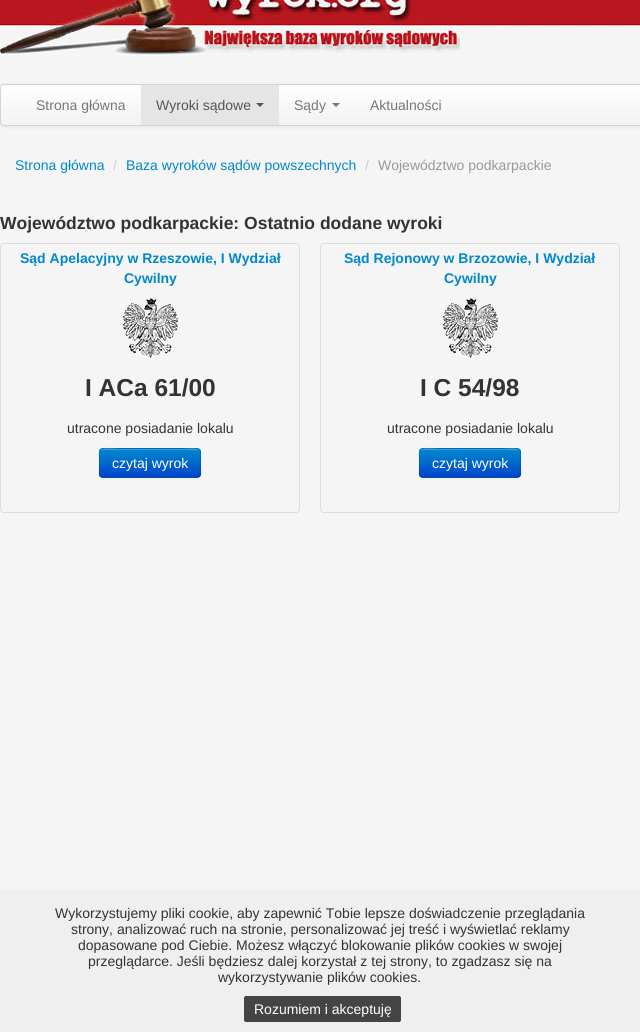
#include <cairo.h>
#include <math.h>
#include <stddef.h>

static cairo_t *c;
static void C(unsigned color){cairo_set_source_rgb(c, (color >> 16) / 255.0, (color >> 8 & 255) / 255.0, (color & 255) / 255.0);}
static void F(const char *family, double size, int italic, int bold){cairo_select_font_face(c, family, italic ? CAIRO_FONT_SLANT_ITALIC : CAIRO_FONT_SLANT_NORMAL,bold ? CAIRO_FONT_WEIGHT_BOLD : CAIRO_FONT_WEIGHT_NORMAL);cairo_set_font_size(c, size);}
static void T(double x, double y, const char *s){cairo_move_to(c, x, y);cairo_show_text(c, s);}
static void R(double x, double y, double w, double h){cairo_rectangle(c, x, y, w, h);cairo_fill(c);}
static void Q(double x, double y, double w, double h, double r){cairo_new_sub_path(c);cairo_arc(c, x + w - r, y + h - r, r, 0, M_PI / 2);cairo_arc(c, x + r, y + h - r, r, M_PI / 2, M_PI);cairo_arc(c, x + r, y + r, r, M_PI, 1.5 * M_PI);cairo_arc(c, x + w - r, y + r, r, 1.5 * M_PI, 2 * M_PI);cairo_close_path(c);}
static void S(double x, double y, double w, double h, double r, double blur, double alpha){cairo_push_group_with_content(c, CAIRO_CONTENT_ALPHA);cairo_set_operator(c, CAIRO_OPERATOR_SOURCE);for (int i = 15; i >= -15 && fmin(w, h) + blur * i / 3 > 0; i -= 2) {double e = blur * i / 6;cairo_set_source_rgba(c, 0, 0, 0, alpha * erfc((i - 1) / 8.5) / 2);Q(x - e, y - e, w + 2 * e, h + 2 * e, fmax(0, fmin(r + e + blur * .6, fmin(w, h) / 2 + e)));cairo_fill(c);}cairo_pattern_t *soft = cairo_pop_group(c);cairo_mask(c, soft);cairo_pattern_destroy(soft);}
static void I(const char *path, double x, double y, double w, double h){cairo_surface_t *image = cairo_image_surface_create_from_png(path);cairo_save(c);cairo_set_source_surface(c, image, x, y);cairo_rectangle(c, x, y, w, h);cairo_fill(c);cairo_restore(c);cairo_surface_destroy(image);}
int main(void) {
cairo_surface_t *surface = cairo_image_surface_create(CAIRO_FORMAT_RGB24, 640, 1032);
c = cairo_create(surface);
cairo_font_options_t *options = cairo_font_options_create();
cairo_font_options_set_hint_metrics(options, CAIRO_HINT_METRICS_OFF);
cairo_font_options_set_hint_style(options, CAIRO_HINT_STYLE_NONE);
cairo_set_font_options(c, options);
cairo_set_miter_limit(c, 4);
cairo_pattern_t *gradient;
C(0xf5f5f5);
cairo_paint(c);
I("1.png",460,0,180,29);
I("2.png",0,0,460,56);
C(0x000000);
S(0,85,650,42,4,2,.07);
cairo_save(c);
Q(0,84,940,42,4);
cairo_clip(c);
gradient = cairo_pattern_create_linear(470,85,470,125);
cairo_pattern_add_color_stop_rgba(gradient,0,1,1,1,1);
cairo_pattern_add_color_stop_rgba(gradient,1,0.949,0.949,0.949,1);
cairo_set_source(c,gradient);
cairo_pattern_destroy(gradient);
R(0,85,640,40);
cairo_restore(c);
Q(.5,84.5,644,41,3.5);
C(0xd4d4d4);
cairo_set_line_width(c,1);
cairo_stroke(c);
F("Liberation Sans",14,0,0);
C(0x777777);
T(36,110,"Strona główna");
C(0xe5e5e5);
R(141,85,138,40);
C(0x555555);
T(156,110,"Wyroki sądowe");
cairo_new_path(c);
cairo_move_to(c,256,103);
cairo_line_to(c,264,103);
cairo_line_to(c,260,107);
cairo_close_path(c);
cairo_fill(c);
C(0x777777);
T(294,110,"Sądy");
cairo_new_path(c);
cairo_move_to(c,332,103);
cairo_line_to(c,340,103);
cairo_line_to(c,336,107);
cairo_close_path(c);
cairo_fill(c);
T(370,110,"Aktualności");
C(0x0088cc);
T(15,170,"Strona główna");
C(0xcccccc);
T(113,170,"/");
C(0x0088cc);
T(126,170,"Baza wyroków sądów powszechnych");
C(0xcccccc);
T(365,170,"/");
C(0x999999);
T(378,170,"Województwo podkarpackie");
F("Liberation Sans",17.5,0,1);
C(0x333333);
T(0,229,"Województwo podkarpackie: Ostatnio dodane wyroki");
Q(.5,243.5,299,269,3.5);
C(0xdddddd);
cairo_stroke(c);
F("Liberation Sans",14,0,1);
C(0x0088cc);
T(20,263,"Sąd Apelacyjny w Rzeszowie, I Wydział");
T(124,283,"Cywilny");
I("3.png",123,298,55,60);
F("Liberation Sans",24.5,0,1);
C(0x333333);
T(85,396,"I ACa 61/00");
F("Liberation Sans",14,0,0);
T(67,433,"utracone posiadanie lokalu");
C(0x000000);
S(99,449,102,30,4,1,.05);
C(0x006dcc);
Q(99,448,102,30,4);
cairo_fill(c);
cairo_save(c);
Q(99,448,102,30,4);
cairo_clip(c);
gradient = cairo_pattern_create_linear(150,449,150,477);
cairo_pattern_add_color_stop_rgba(gradient,0,0,0.533,0.8,1);
cairo_pattern_add_color_stop_rgba(gradient,1,0,0.267,0.8,1);
cairo_set_source(c,gradient);
cairo_pattern_destroy(gradient);
R(99,449,102,28);
cairo_restore(c);
cairo_set_source_rgba(c,1,1,1,0.2);
cairo_new_path(c);
cairo_move_to(c,103,450);
cairo_line_to(c,197,450);
cairo_curve_to(c,199,450,200,451,200,453);
cairo_curve_to(c,200,445,184,449,181,449);
cairo_line_to(c,119,449);
cairo_curve_to(c,116,449,100,445,100,453);
cairo_curve_to(c,100,451,101,450,103,450);
cairo_close_path(c);
cairo_fill(c);
cairo_new_path(c);
cairo_move_to(c,199.5,476.5);
cairo_line_to(c,197,477.5);
cairo_line_to(c,102.5,477.5);
cairo_line_to(c,100.5,476.5);
cairo_set_source_rgba(c,0,0,0,0.25);
cairo_stroke(c);
cairo_new_path(c);
cairo_move_to(c,100.5,476.5);
cairo_curve_to(c,98,474,99.5,469.5,99.5,466.5);
cairo_curve_to(c,99.5,445,96,448.5,118.5,448.5);
cairo_line_to(c,181.5,448.5);
cairo_curve_to(c,204,448.5,200.5,445,200.5,466.5);
cairo_curve_to(c,200.5,469.5,202,474,199.5,476.5);
cairo_set_source_rgba(c,0,0,0,0.1);
cairo_stroke(c);
C(0xffffff);
T(112,468,"czytaj wyrok");
Q(320.5,243.5,299,269,3.5);
C(0xdddddd);
cairo_stroke(c);
F("Liberation Sans",14,0,1);
C(0x0088cc);
T(344,263,"Sąd Rejonowy w Brzozowie, I Wydział");
T(444,283,"Cywilny");
I("3.png",443,298,55,60);
F("Liberation Sans",24.5,0,1);
C(0x333333);
T(420,396,"I C 54/98");
F("Liberation Sans",14,0,0);
T(387,433,"utracone posiadanie lokalu");
C(0x000000);
S(419,449,102,30,4,1,.05);
C(0x006dcc);
Q(419,448,102,30,4);
cairo_fill(c);
cairo_save(c);
Q(419,448,102,30,4);
cairo_clip(c);
gradient = cairo_pattern_create_linear(470,449,470,477);
cairo_pattern_add_color_stop_rgba(gradient,0,0,0.533,0.8,1);
cairo_pattern_add_color_stop_rgba(gradient,1,0,0.267,0.8,1);
cairo_set_source(c,gradient);
cairo_pattern_destroy(gradient);
R(419,449,102,28);
cairo_restore(c);
cairo_set_source_rgba(c,1,1,1,0.2);
cairo_new_path(c);
cairo_move_to(c,423,450);
cairo_line_to(c,517,450);
cairo_curve_to(c,519,450,520,451,520,453);
cairo_curve_to(c,520,445,504,449,501,449);
cairo_line_to(c,439,449);
cairo_curve_to(c,436,449,420,445,420,453);
cairo_curve_to(c,420,451,421,450,423,450);
cairo_close_path(c);
cairo_fill(c);
cairo_new_path(c);
cairo_move_to(c,519.5,476.5);
cairo_line_to(c,517.5,477.5);
cairo_line_to(c,438.5,477.5);
cairo_line_to(c,423,477.5);
cairo_line_to(c,420.5,476.5);
cairo_set_source_rgba(c,0,0,0,0.25);
cairo_stroke(c);
cairo_new_path(c);
cairo_move_to(c,420.5,476.5);
cairo_curve_to(c,418,474,419.5,469.5,419.5,466.5);
cairo_curve_to(c,419.5,445,416,448.5,438.5,448.5);
cairo_line_to(c,501.5,448.5);
cairo_curve_to(c,524,448.5,520.5,445,520.5,466.5);
cairo_curve_to(c,520.5,469.5,522,474,519.5,476.5);
cairo_set_source_rgba(c,0,0,0,0.1);
cairo_stroke(c);
C(0xffffff);
T(432,468,"czytaj wyrok");
C(0xefefef);
R(0,890,640,142);
C(0x333333);
T(55,918,"Wykorzystujemy pliki cookie, aby zapewnić Tobie lepsze doświadczenie przeglądania");
T(71,934,"strony, analizować ruch na stronie, personalizować jej treść i wyświetlać reklamy");
T(78,950,"dopasowane pod Ciebie. Możesz włączyć blokowanie plików cookies w swojej");
T(88,966,"przeglądarce. Jeśli będziesz dalej korzystał z tej strony, to zgadzasz się na");
T(218,982,"wykorzystywanie plików cookies.");
C(0x444444);
Q(244,996,157,26,2);
cairo_fill(c);
C(0xffffff);
T(254,1014,"Rozumiem i akceptuję");
cairo_surface_write_to_png(surface, "o.png");
cairo_font_options_destroy(options);
cairo_destroy(c);
cairo_surface_destroy(surface);
return 0;
}
